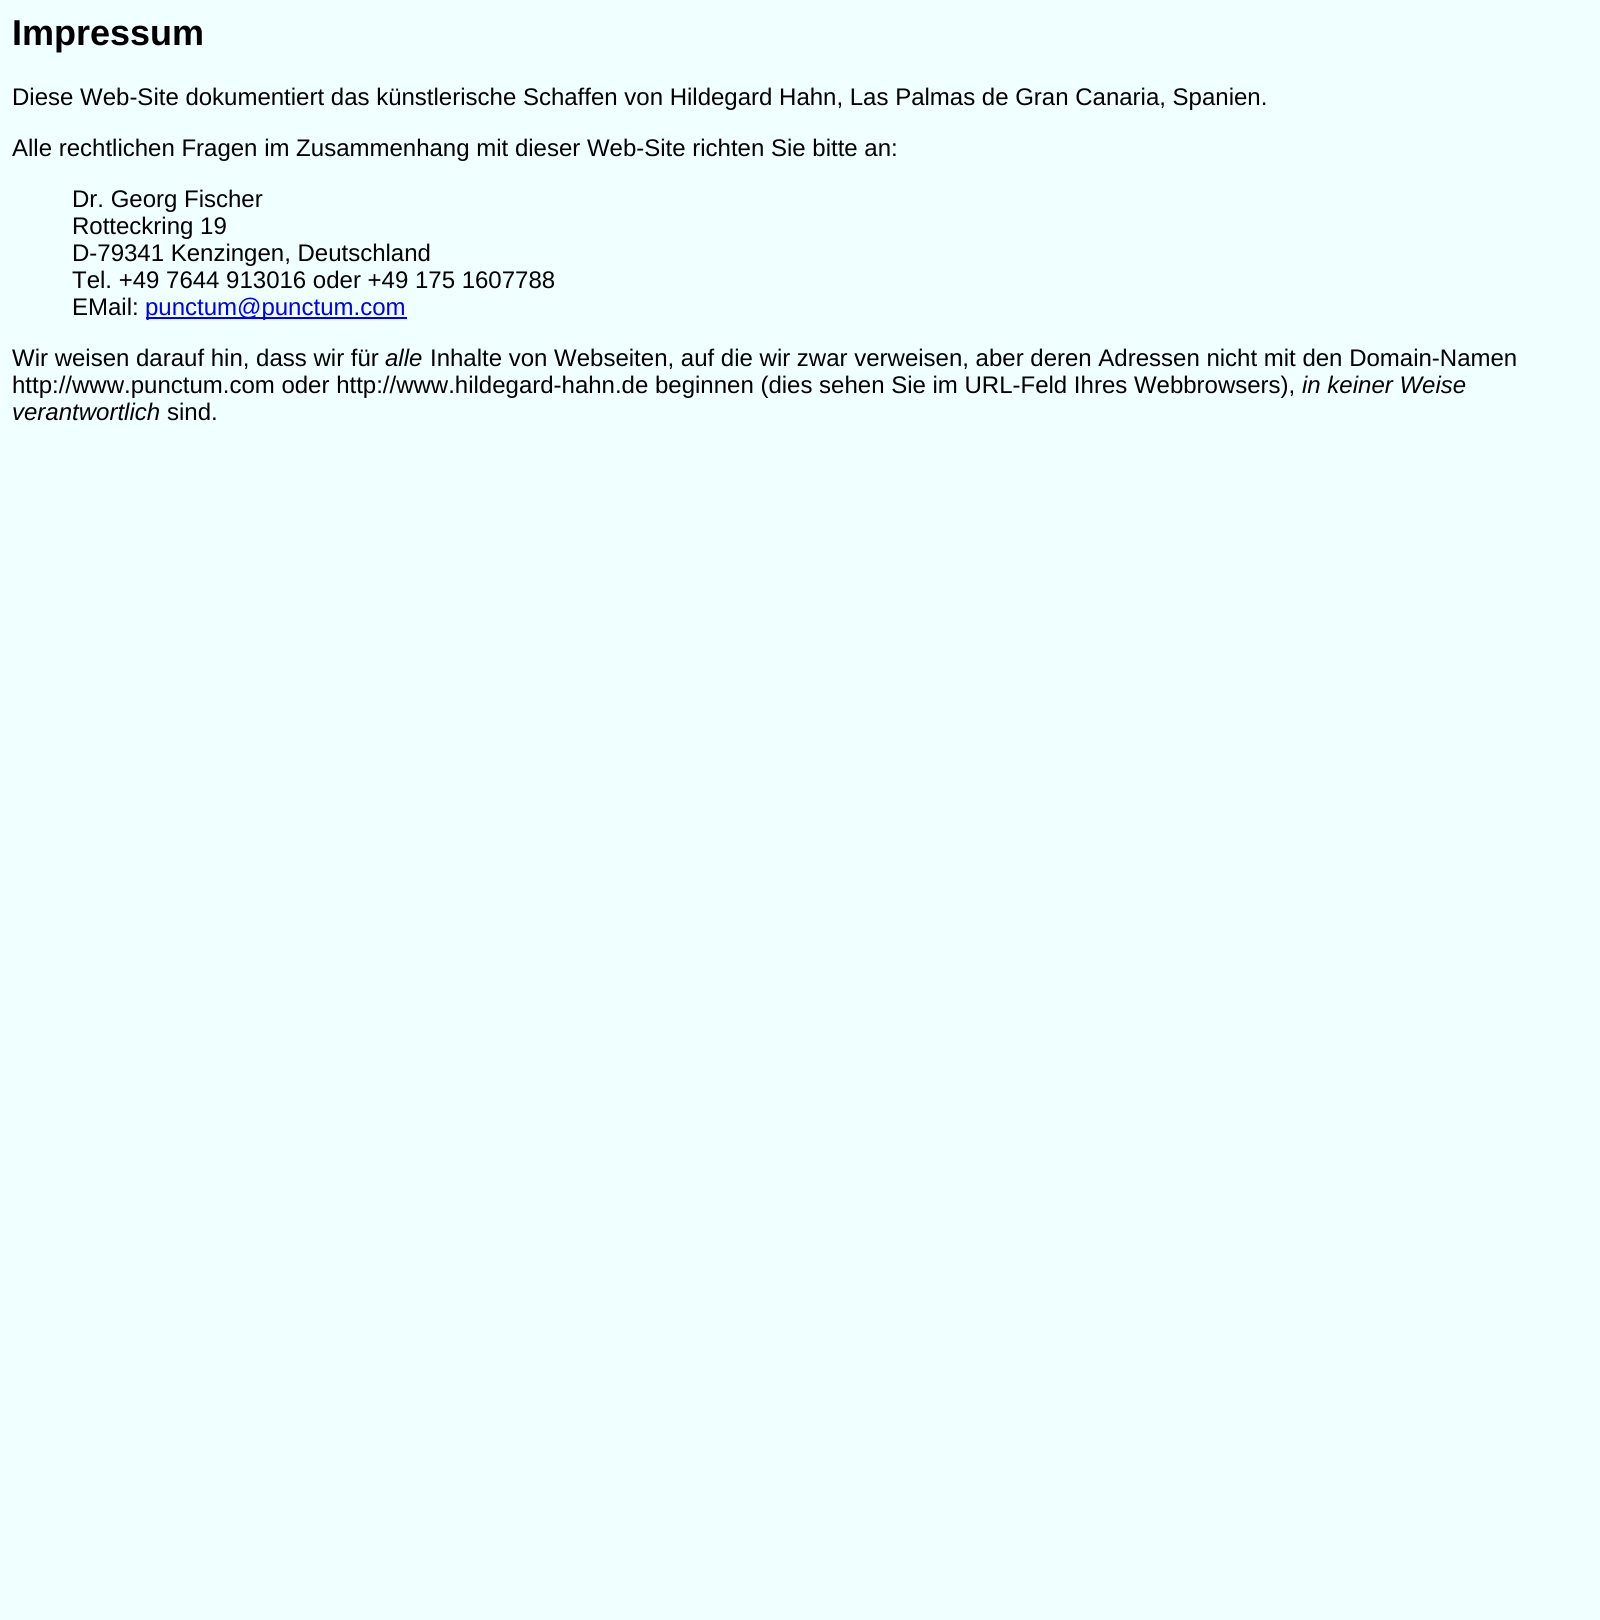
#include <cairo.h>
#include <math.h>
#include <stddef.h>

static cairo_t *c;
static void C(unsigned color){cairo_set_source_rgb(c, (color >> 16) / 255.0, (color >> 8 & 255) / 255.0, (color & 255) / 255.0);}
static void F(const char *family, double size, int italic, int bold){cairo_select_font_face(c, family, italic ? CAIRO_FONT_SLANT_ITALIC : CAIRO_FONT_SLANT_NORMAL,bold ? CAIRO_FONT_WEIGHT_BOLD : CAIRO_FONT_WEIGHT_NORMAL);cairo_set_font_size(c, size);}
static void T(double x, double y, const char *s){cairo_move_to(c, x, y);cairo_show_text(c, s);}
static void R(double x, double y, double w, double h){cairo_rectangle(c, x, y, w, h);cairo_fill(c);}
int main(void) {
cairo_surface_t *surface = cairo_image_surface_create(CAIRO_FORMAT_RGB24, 1600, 1620);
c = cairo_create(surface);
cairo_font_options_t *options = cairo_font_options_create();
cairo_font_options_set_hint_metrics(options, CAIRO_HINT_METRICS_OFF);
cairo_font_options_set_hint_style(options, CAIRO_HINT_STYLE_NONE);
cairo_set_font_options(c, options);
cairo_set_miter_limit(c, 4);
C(0xf0ffff);
cairo_paint(c);
F("Liberation Sans",36,0,1);
C(0x000000);
T(12,45,"Impressum");
F("Liberation Sans",24,0,0);
T(12,105,"Diese Web-Site dokumentiert das künstlerische Schaffen von Hildegard Hahn, Las Palmas de Gran Canaria, Spanien.");
T(12,156,"Alle rechtlichen Fragen im Zusammenhang mit dieser Web-Site richten Sie bitte an:");
T(72,207,"Dr. Georg Fischer");
T(72,234,"Rotteckring 19");
T(72,261,"D-79341 Kenzingen, Deutschland");
T(72,288,"Tel. +49 7644 913016 oder +49 175 1607788");
T(72,315,"EMail:");
C(0x0000ee);
R(146,317,261,2);
T(145,315,"punctum@punctum.com");
C(0x000000);
T(12,366,"Wir weisen darauf hin, dass wir für");
F("Liberation Sans",24,1,0);
T(385,366,"alle");
F("Liberation Sans",24,0,0);
T(430,366,"Inhalte von Webseiten, auf die wir zwar verweisen, aber deren Adressen nicht mit den Domain-Namen");
T(12,393,"http://www.punctum.com oder http://www.hildegard-hahn.de beginnen (dies sehen Sie im URL-Feld Ihres Webbrowsers),");
F("Liberation Sans",24,1,0);
T(1302,393,"in keiner Weise");
T(12,420,"verantwortlich");
F("Liberation Sans",24,0,0);
T(167,420,"sind.");
cairo_surface_write_to_png(surface, "o.png");
cairo_font_options_destroy(options);
cairo_destroy(c);
cairo_surface_destroy(surface);
return 0;
}
